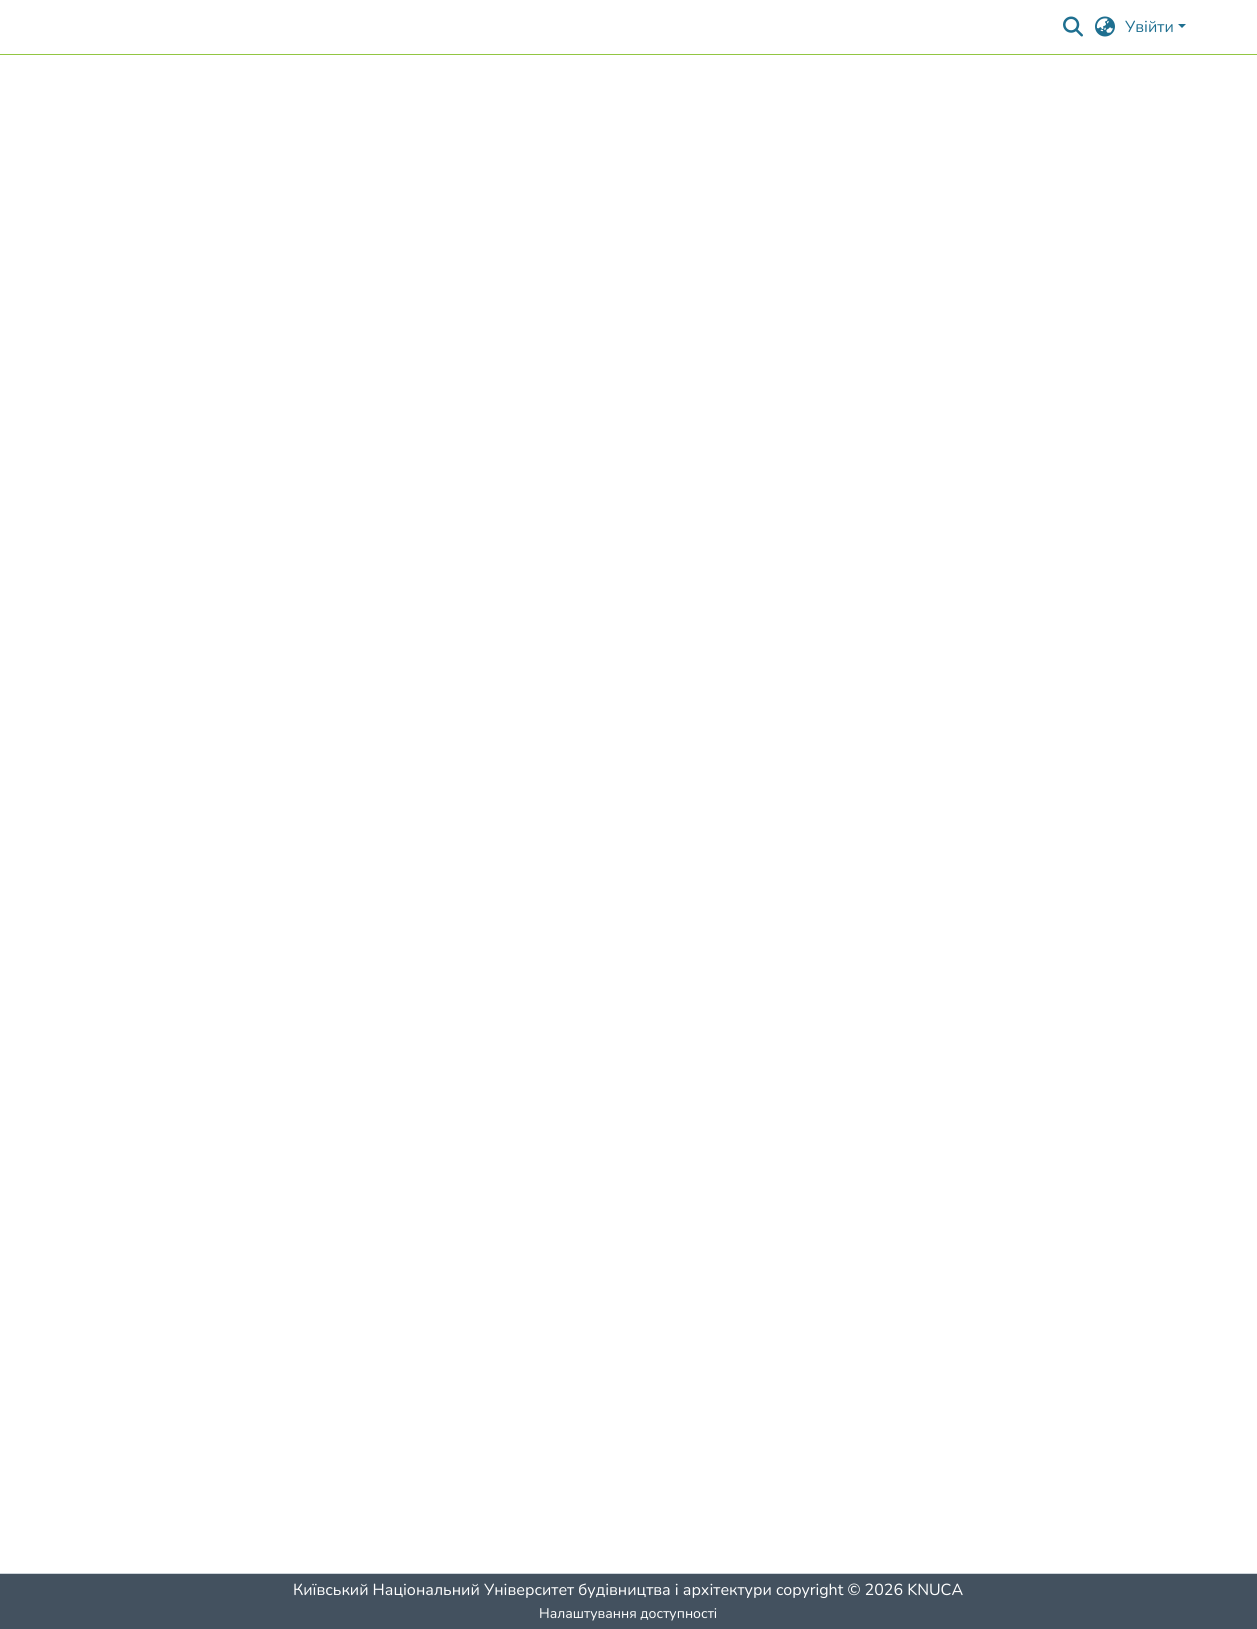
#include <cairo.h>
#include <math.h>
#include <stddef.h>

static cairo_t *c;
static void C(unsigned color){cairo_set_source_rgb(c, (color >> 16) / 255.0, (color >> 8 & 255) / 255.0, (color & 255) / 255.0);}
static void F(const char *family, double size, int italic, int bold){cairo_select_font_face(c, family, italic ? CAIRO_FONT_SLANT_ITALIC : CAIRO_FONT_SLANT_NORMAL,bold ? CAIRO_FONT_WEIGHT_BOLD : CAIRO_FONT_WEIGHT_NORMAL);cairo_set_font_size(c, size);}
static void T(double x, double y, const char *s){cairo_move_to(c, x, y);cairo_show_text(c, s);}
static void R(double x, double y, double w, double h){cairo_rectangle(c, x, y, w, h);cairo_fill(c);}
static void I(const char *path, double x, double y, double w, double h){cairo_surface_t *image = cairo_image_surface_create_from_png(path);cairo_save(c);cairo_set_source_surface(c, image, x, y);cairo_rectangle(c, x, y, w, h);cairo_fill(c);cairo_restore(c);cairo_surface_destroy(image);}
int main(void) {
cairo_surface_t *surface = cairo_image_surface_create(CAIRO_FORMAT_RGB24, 1257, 1629);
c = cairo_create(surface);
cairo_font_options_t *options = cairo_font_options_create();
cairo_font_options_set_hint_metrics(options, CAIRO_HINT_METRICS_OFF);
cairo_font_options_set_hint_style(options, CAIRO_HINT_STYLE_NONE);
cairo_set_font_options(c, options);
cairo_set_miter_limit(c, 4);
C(0xffffff);
cairo_paint(c);
C(0x92c642);
R(0,54,1257,1);
I("1.png",1063,16,20,21);
I("2.png",1095,16,20,21);
F("Nunito",16,0,0);
C(0x1e6f90);
T(1125,32,"Увійти");
cairo_new_path(c);
cairo_move_to(c,1178,24);
cairo_line_to(c,1186,24);
cairo_line_to(c,1182,28);
cairo_close_path(c);
cairo_fill(c);
C(0x43515f);
R(0,1574,1257,55);
C(0xced4da);
R(0,1573,1257,1);
C(0xffffff);
T(293,1595,"Київський Національний Університет будівництва і архітектури copyright © 2026 KNUCA");
F("Nunito",14,0,0);
T(539,1618,"Налаштування доступності");
cairo_surface_write_to_png(surface, "o.png");
cairo_font_options_destroy(options);
cairo_destroy(c);
cairo_surface_destroy(surface);
return 0;
}
